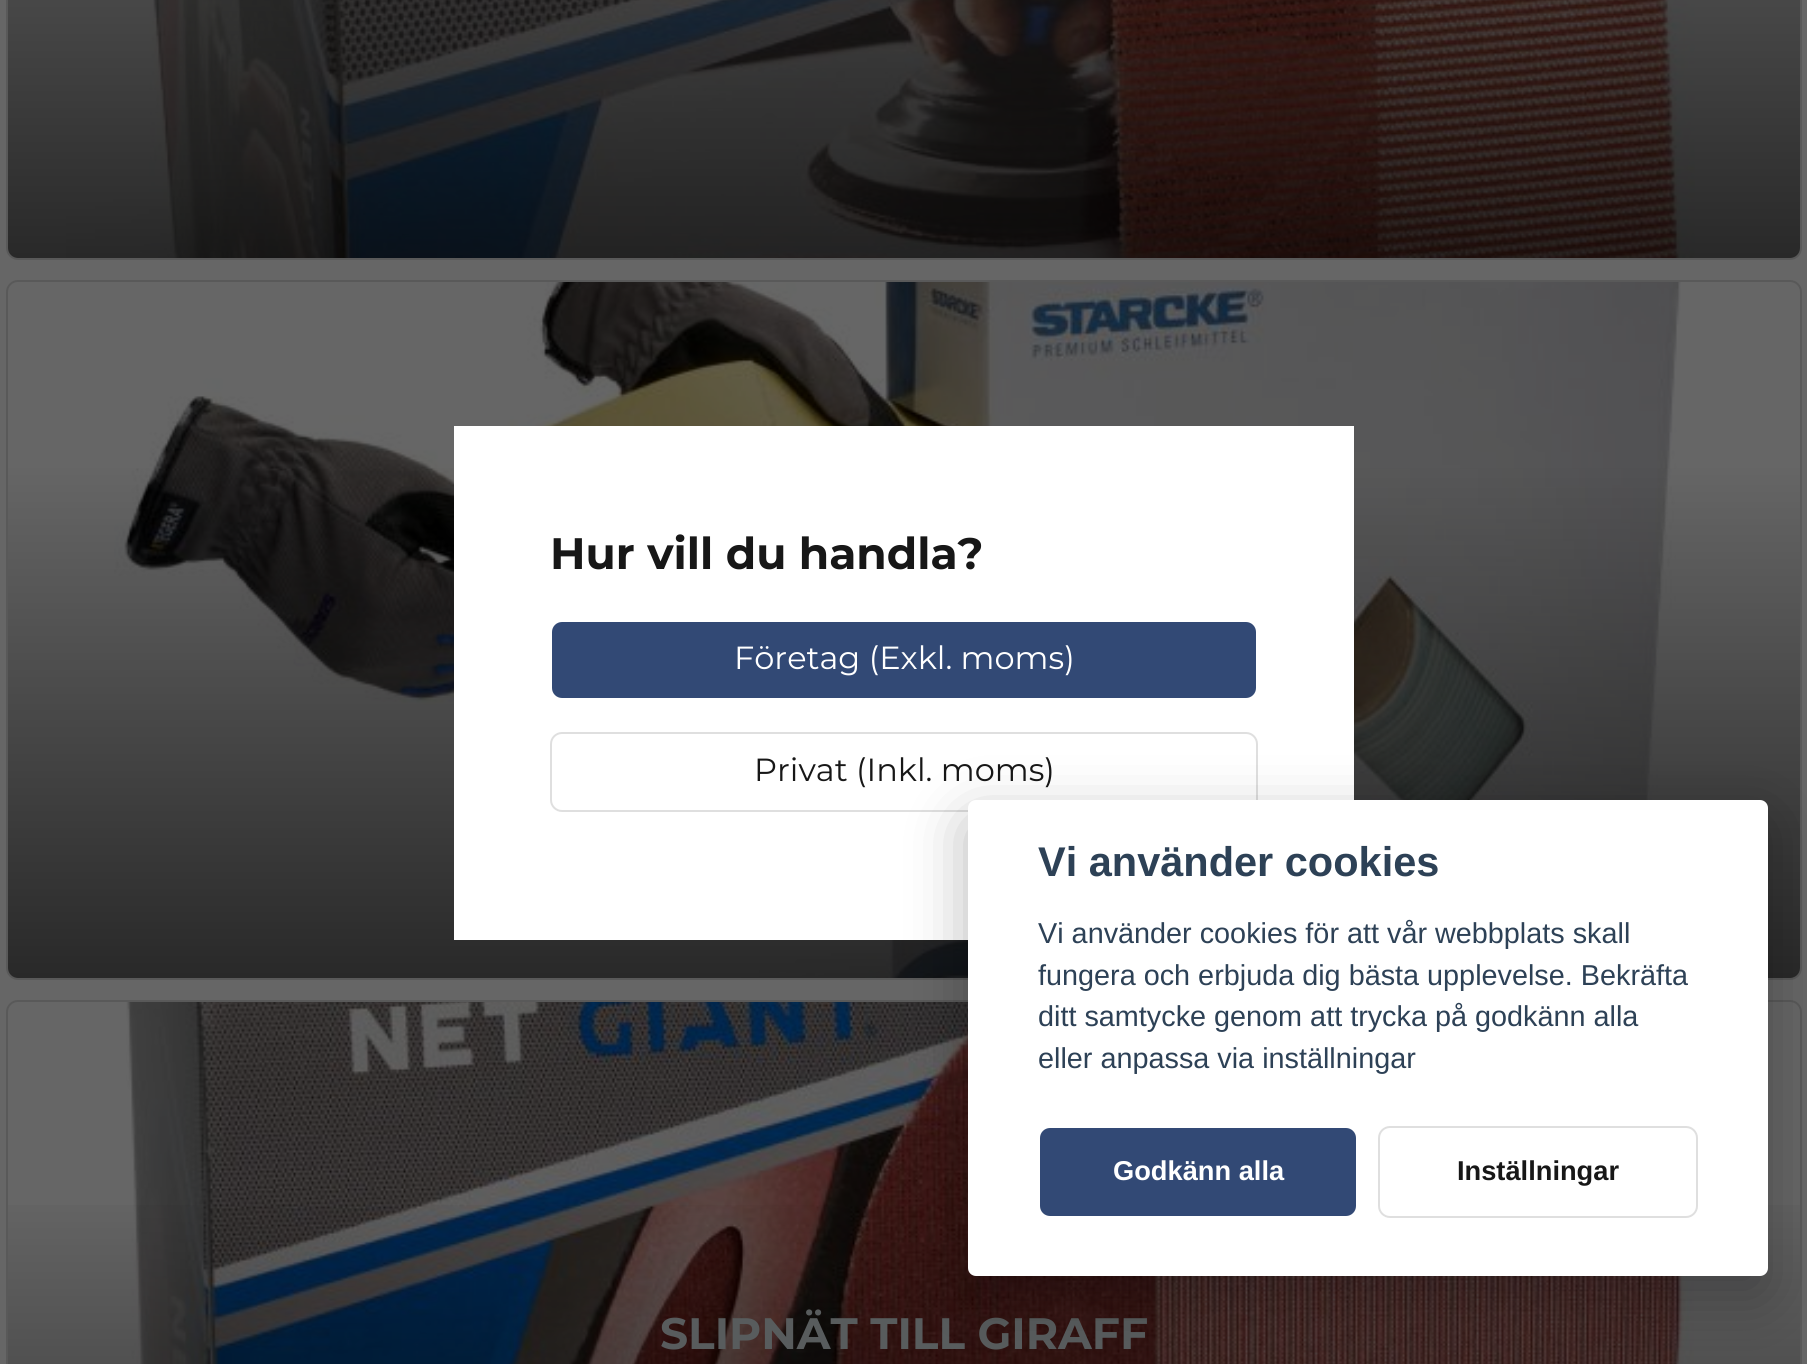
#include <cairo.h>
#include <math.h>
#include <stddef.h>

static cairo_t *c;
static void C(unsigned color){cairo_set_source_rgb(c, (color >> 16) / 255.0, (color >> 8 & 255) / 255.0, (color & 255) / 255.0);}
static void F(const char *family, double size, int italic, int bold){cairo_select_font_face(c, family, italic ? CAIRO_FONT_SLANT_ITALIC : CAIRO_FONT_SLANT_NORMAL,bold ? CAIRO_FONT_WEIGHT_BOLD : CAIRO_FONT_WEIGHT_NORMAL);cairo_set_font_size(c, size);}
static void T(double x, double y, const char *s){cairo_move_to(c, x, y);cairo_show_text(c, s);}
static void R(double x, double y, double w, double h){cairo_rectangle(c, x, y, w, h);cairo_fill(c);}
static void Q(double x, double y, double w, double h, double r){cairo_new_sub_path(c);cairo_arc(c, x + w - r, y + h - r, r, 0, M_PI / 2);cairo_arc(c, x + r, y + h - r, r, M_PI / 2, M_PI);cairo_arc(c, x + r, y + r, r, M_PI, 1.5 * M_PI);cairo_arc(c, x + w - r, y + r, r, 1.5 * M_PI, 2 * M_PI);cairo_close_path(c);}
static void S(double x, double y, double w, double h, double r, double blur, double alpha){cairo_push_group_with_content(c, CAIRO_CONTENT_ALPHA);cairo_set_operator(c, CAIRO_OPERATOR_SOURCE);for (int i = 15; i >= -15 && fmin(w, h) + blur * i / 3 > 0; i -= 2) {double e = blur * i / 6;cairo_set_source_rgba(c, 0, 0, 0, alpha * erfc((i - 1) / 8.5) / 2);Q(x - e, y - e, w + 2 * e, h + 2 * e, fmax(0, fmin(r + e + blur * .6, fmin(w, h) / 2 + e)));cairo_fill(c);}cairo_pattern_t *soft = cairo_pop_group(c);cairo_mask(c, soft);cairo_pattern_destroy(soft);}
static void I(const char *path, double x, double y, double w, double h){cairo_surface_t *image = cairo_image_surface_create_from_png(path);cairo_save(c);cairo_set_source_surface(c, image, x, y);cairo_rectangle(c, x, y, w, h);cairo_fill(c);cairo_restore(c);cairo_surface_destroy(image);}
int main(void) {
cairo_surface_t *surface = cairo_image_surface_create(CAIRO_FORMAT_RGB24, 1807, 1364);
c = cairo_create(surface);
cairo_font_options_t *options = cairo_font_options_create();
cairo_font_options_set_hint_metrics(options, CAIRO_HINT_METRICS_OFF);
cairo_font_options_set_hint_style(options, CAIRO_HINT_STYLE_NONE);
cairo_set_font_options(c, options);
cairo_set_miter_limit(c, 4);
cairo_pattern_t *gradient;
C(0x666666);
cairo_paint(c);
I("2.png",114,282,1567,696);
Q(7,281,1794,698,11);
C(0x595959);
cairo_stroke(c);
gradient = cairo_pattern_create_linear(904,282,904,978);
cairo_pattern_add_color_stop_rgba(gradient,.26,0,0,0,0);
cairo_pattern_add_color_stop_rgba(gradient,1,0,0,0,.6);
cairo_set_source(c,gradient);
cairo_pattern_destroy(gradient);
Q(8,282,1792,696,10);
cairo_fill(c);
C(0xffffff);
R(454,426,900,514);
F("Montserrat",44,0,1);
C(0x171717);
T(550,569,"Hur vill du handla?");
C(0x324975);
Q(551,621,706,78,11);
cairo_fill_preserve(c);
C(0xffffff);
cairo_stroke(c);
F("Montserrat",32,0,0);
T(734,669,"Företag (Exkl. moms)");
Q(551,733,706,78,11);
C(0xdfdfdf);
cairo_stroke(c);
C(0x171717);
T(754,781,"Privat (Inkl. moms)");
I("1.png",66,0,1629,258);
Q(7,-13,1794,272,11);
C(0x595959);
cairo_stroke(c);
gradient = cairo_pattern_create_linear(904,-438,904,258);
cairo_pattern_add_color_stop_rgba(gradient,.26,0,0,0,0);
cairo_pattern_add_color_stop_rgba(gradient,1,0,0,0,.6);
cairo_set_source(c,gradient);
cairo_pattern_destroy(gradient);
Q(8,-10,1792,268,10);
cairo_fill(c);
I("3.png",126,1002,1568,362);
Q(7,1001,1794,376,11);
C(0x595959);
cairo_stroke(c);
gradient = cairo_pattern_create_linear(904,1002,904,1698);
cairo_pattern_add_color_stop_rgba(gradient,.26,0,0,0,0);
cairo_pattern_add_color_stop_rgba(gradient,1,0,0,0,.6);
cairo_set_source(c,gradient);
cairo_pattern_destroy(gradient);
R(8,1205,1792,159);
F("Montserrat",44,0,1);
C(0x585c5d);
T(660,1349,"SLIPNÄT TILL GIRAFF");
C(0x020203);
S(968,820,800,476,8,30,.28);
C(0xffffff);
Q(968,800,800,476,8);
cairo_fill(c);
F("Liberation Sans",41.5,0,1);
C(0x2d4156);
T(1038,876,"Vi använder cookies");
F("Liberation Sans",28.8,0,0);
T(1038,943,"Vi använder cookies för att vår webbplats skall");
T(1038,985,"fungera och erbjuda dig bästa upplevelse. Bekräfta");
T(1038,1026,"ditt samtycke genom att trycka på godkänn alla");
T(1038,1068,"eller anpassa via inställningar");
C(0x324975);
Q(1039,1127,318,90,11);
cairo_fill_preserve(c);
C(0xffffff);
cairo_stroke(c);
F("Liberation Sans",27.25,0,1);
T(1113,1180,"Godkänn alla");
Q(1379,1127,318,90,11);
C(0xdfdfdf);
cairo_stroke(c);
C(0x171717);
T(1457,1180,"Inställningar");
cairo_surface_write_to_png(surface, "o.png");
cairo_font_options_destroy(options);
cairo_destroy(c);
cairo_surface_destroy(surface);
return 0;
}
